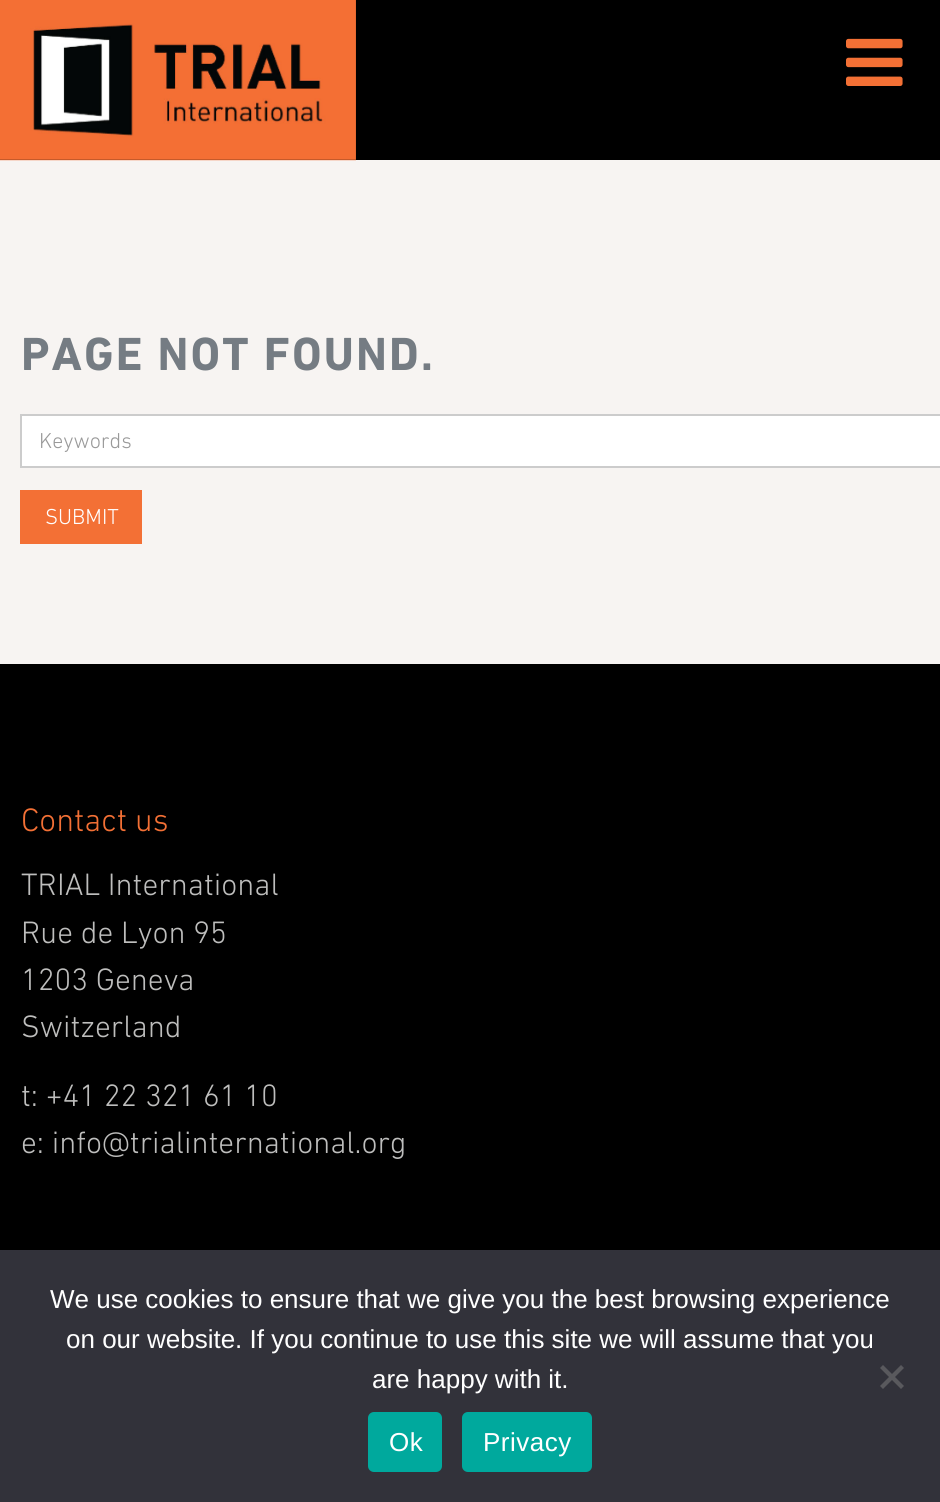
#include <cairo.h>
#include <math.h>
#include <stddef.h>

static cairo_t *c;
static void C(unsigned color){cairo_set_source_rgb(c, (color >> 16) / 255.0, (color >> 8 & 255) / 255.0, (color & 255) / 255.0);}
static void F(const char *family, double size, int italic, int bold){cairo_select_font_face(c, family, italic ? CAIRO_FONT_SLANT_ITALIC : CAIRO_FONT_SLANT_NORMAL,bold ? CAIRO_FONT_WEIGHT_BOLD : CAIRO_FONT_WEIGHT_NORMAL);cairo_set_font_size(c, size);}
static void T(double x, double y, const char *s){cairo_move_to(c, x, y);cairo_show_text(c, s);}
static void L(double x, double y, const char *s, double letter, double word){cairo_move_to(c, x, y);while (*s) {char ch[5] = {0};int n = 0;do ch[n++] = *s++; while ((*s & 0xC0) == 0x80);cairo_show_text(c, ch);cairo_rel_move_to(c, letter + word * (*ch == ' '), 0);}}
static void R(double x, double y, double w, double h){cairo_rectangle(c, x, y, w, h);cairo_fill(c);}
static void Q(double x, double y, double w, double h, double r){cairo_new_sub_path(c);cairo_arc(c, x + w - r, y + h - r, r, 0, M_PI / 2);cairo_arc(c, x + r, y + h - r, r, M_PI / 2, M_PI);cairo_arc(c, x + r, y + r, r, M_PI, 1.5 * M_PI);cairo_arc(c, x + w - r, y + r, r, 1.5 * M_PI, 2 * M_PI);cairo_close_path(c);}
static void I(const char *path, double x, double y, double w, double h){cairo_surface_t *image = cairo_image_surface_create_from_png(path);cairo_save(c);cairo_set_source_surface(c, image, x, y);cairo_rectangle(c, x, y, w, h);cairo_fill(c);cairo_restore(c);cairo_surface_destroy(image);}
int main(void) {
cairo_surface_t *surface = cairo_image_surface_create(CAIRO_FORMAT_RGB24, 940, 1502);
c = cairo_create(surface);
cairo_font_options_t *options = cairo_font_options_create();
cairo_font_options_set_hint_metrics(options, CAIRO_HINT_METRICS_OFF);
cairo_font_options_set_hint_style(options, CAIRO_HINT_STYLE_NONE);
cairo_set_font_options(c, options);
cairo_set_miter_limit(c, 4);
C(0xf7f4f2);
cairo_paint(c);
C(0x000000);
R(0,0,940,160);
I("1.png",0,0,356,161);
I("2.png",846,38,57,48);
F("DIN",47.25,0,1);
C(0x757c83);
L(21,370,"PAGE NOT FOUND.",2,0);
C(0xffffff);
cairo_rectangle(c,21,415,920,52);
cairo_fill_preserve(c);
C(0xcccccc);
cairo_stroke(c);
F("DIN Light",22,0,0);
C(0x999999);
T(39,448,"Keywords");
C(0xf37035);
R(20,490,122,54);
C(0xffffff);
T(45,524,"SUBMIT");
C(0x000000);
R(0,664,940,586);
F("DIN Light",33,0,0);
C(0xf37035);
T(21,831,"Contact us");
F("DIN Light",31.5,0,0);
C(0xbebebd);
T(21,895,"TRIAL International");
T(21,943,"Rue de Lyon 95");
T(21,990,"1203 Geneva");
T(21,1037,"Switzerland");
T(21,1106,"t: +41 22 321 61 10");
T(21,1153,"e: info@trialinternational.org");
C(0x32323a);
R(0,1250,940,252);
F("Liberation Sans",26,0,0);
C(0xffffff);
T(50,1308,"We use cookies to ensure that we give you the best browsing experience");
T(66,1348,"on our website. If you continue to use this site we will assume that you");
T(372,1388,"are happy with it.");
C(0x59595d);
cairo_new_path(c);
cairo_move_to(c,901,1365);
cairo_line_to(c,904,1368);
cairo_line_to(c,883,1389);
cairo_line_to(c,880,1386);
cairo_close_path(c);
cairo_fill(c);
cairo_new_path(c);
cairo_move_to(c,880,1368);
cairo_line_to(c,883,1365);
cairo_line_to(c,904,1386);
cairo_line_to(c,901,1389);
cairo_close_path(c);
cairo_fill(c);
C(0x00a99d);
Q(368,1412,74,60,6);
cairo_fill(c);
C(0xffffff);
L(389,1451,"Ok",.5,0);
C(0x00a99d);
Q(462,1412,130,60,6);
cairo_fill(c);
C(0xffffff);
L(483,1451,"Privacy",.5,0);
cairo_surface_write_to_png(surface, "o.png");
cairo_font_options_destroy(options);
cairo_destroy(c);
cairo_surface_destroy(surface);
return 0;
}
